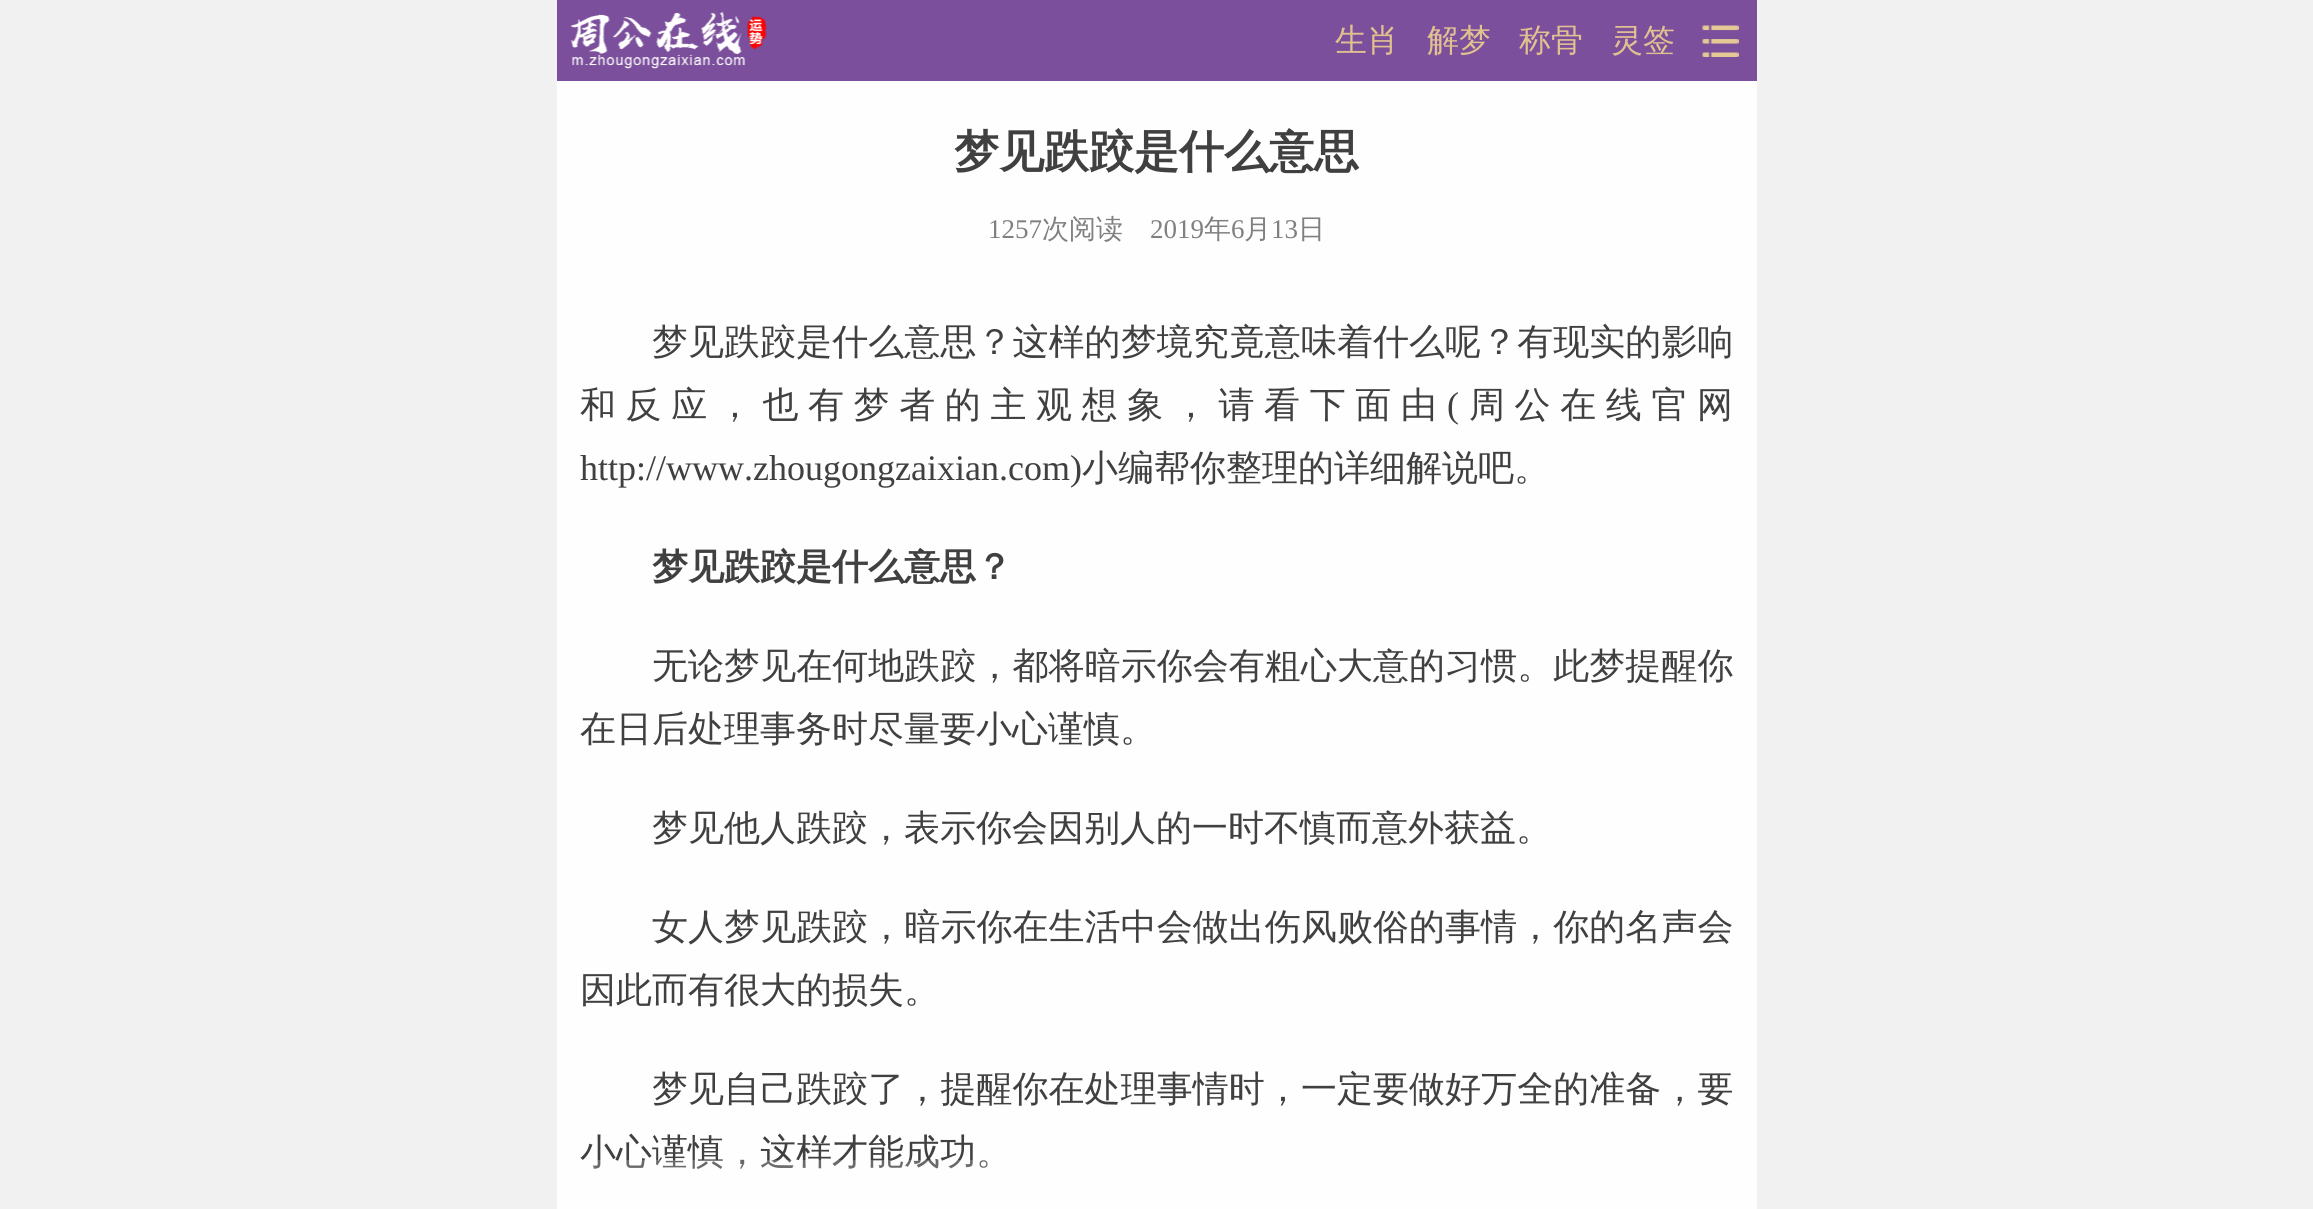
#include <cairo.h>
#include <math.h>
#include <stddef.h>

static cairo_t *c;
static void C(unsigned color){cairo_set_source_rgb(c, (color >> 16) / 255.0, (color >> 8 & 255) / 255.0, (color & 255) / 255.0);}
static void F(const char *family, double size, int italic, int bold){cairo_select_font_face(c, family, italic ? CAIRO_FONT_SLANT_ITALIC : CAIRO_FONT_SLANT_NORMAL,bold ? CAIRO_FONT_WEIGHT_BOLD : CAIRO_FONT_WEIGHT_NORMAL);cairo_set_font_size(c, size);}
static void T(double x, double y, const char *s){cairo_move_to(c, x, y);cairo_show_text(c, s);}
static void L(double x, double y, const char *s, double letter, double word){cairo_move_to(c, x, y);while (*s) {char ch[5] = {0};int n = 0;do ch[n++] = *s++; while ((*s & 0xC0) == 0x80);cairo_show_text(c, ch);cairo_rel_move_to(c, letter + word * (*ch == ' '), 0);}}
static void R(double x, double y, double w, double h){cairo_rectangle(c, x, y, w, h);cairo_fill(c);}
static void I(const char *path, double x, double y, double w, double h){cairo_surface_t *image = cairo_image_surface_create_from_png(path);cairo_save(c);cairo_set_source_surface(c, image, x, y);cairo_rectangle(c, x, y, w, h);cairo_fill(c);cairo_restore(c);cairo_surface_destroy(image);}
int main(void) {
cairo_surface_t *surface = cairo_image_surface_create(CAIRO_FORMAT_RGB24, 2313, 1209);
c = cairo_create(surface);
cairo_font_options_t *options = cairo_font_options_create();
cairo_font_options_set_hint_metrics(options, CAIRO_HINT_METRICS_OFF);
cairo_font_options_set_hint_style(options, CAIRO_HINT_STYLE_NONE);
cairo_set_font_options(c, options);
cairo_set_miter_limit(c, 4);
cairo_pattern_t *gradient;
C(0xf1f1f1);
cairo_paint(c);
C(0x7b4f9b);
R(557,0,1200,81);
I("1.png",570,12,197,57);
F("WenQuanYi Zen Hei Medium",32,0,0);
C(0xe2c191);
T(1335,51,"生肖");
T(1427,51,"解梦");
T(1519,51,"称骨");
T(1611,51,"灵签");
I("2.png",1702,25,37,32);
C(0xfefefe);
R(557,81,1200,1128);
F("WenQuanYi Zen Hei",45,0,1);
C(0x404040);
T(954,167,"梦见跌跤是什么意思");
F("Liberation Serif",27,0,0);
C(0x808080);
T(988,238,"1257");
F("WenQuanYi Zen Hei Medium",27,0,0);
T(1042,238,"次阅读");
F("Liberation Serif",27,0,0);
T(1150,238,"2019");
F("WenQuanYi Zen Hei Medium",27,0,0);
T(1204,238,"年");
F("Liberation Serif",27,0,0);
T(1231,238,"6");
F("WenQuanYi Zen Hei Medium",27,0,0);
T(1244,238,"月");
F("Liberation Serif",27,0,0);
T(1271,238,"13");
F("WenQuanYi Zen Hei Medium",27,0,0);
T(1298,238,"日");
F("WenQuanYi Zen Hei Medium",36,0,0);
C(0x404040);
L(652,354,"梦见跌跤是什么意思？这样的梦境究竟意味着什么呢？有现实的影响",.05,0);
L(580,417,"和反应，也有梦者的主观想象，请看下面由",9.6,0);
F("Liberation Serif",36,0,0);
L(1447,417,"(",9.6,0);
F("WenQuanYi Zen Hei Medium",36,0,0);
L(1469,417,"周公在线官网",9.6,0);
F("Liberation Serif",36,0,0);
T(580,480,"http://www.zhougongzaixian.com)");
F("WenQuanYi Zen Hei Medium",36,0,0);
T(1082,480,"小编帮你整理的详细解说吧。");
F("WenQuanYi Zen Hei",36,0,1);
T(652,579,"梦见跌跤是什么意思？");
F("WenQuanYi Zen Hei Medium",36,0,0);
L(652,678,"无论梦见在何地跌跤，都将暗示你会有粗心大意的习惯。此梦提醒你",.05,0);
T(580,741,"在日后处理事务时尽量要小心谨慎。");
T(652,840,"梦见他人跌跤，表示你会因别人的一时不慎而意外获益。");
L(652,939,"女人梦见跌跤，暗示你在生活中会做出伤风败俗的事情，你的名声会",.05,0);
T(580,1002,"因此而有很大的损失。");
L(652,1101,"梦见自己跌跤了，提醒你在处理事情时，一定要做好万全的准备，要",.05,0);
T(580,1164,"小心谨慎，这样才能成功。");
gradient = cairo_pattern_create_linear(1157,1160,1157,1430);
cairo_pattern_add_color_stop_rgba(gradient,0,1,1,1,.2);
cairo_pattern_add_color_stop_rgba(gradient,.5,1,1,1,.8);
cairo_pattern_add_color_stop_rgba(gradient,1,1,1,1,1);
cairo_set_source(c,gradient);
cairo_pattern_destroy(gradient);
R(592,1160,396,9);
cairo_surface_write_to_png(surface, "o.png");
cairo_font_options_destroy(options);
cairo_destroy(c);
cairo_surface_destroy(surface);
return 0;
}
